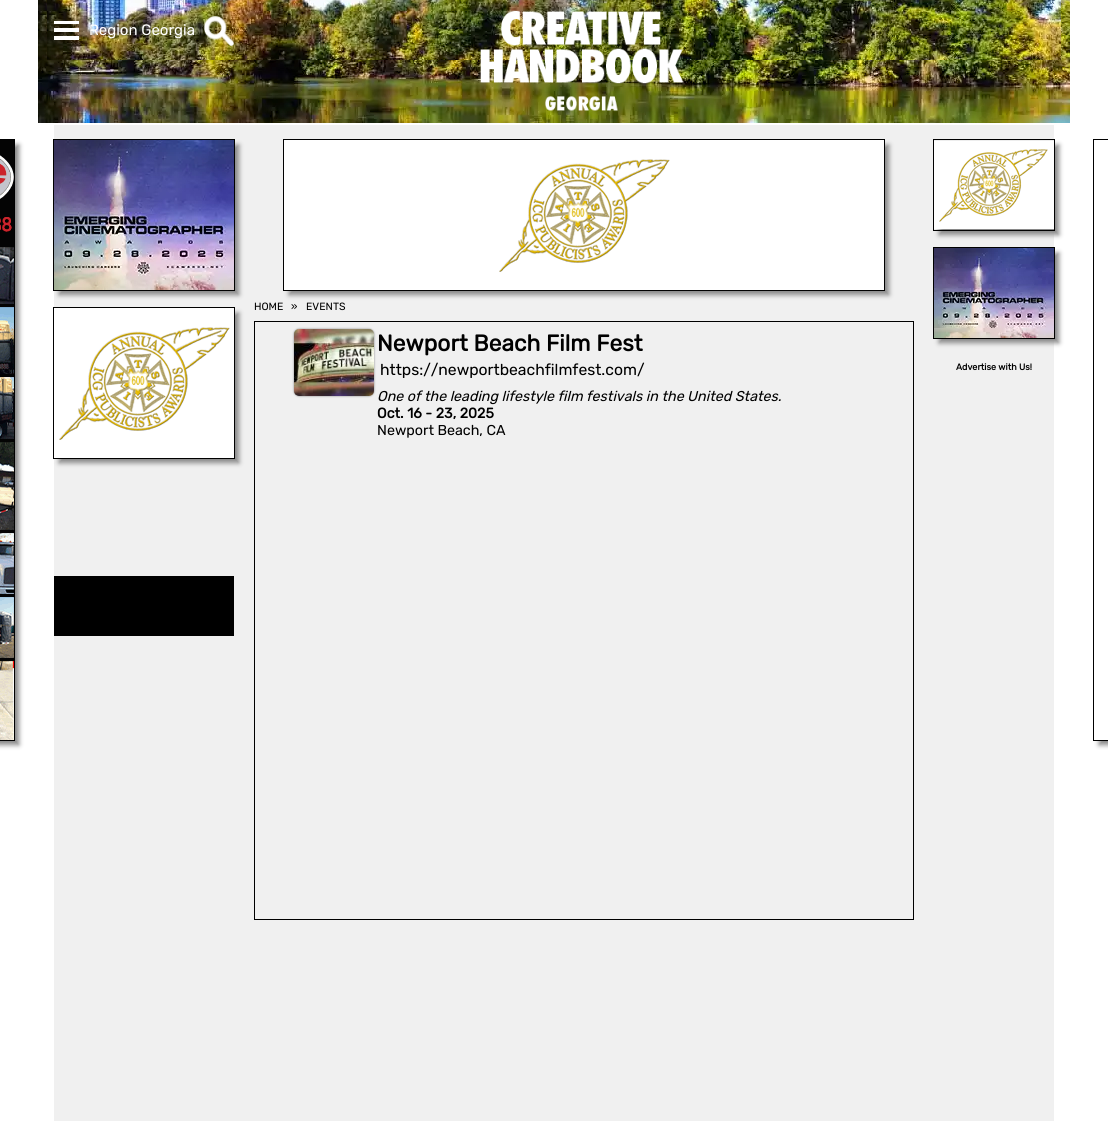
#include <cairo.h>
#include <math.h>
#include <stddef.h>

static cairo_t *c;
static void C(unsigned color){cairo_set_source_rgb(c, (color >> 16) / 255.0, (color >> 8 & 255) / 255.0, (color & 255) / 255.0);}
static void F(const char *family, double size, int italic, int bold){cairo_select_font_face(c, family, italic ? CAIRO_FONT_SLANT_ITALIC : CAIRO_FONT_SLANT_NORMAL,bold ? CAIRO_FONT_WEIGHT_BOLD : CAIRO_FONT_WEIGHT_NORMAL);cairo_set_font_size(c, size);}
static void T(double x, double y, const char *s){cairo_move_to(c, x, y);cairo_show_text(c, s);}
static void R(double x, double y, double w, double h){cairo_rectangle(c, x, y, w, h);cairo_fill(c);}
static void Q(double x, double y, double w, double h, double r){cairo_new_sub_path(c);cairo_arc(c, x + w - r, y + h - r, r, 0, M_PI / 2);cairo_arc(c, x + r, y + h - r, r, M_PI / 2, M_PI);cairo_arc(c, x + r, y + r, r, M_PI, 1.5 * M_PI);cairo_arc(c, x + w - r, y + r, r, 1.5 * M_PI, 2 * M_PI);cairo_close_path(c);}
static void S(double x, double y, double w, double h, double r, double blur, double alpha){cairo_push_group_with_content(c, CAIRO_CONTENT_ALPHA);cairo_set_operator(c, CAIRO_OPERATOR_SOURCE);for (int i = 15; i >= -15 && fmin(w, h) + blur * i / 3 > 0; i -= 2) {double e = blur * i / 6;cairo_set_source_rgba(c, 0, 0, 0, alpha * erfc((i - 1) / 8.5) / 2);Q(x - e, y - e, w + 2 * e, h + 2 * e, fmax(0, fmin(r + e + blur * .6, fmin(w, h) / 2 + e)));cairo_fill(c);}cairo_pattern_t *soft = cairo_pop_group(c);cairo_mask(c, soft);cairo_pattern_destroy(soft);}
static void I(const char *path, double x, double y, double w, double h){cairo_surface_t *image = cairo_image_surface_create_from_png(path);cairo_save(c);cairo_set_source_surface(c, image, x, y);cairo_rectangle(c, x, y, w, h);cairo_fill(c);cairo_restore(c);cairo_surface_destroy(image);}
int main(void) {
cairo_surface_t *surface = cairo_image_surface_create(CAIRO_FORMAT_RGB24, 1108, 1121);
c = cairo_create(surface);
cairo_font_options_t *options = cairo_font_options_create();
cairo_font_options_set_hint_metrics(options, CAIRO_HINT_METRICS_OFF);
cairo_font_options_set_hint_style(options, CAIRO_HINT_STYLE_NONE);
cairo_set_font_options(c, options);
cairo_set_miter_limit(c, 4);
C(0xffffff);
cairo_paint(c);
I("1.png",38,0,1032,123);
I("2.png",47,0,1014,60);
C(0xffffff);
R(54,21,25,3);
R(54,28,25,4);
R(54,36,25,4);
F("Rubik Light",15,0,0);
T(89,35,"Region Georgia");
I("3.png",204,16,30,30);
I("4.png",480,10,204,101);
C(0x888888);
S(-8,145,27,600,0,2.5,1);
I("5.png",0,140,14,600);
cairo_rectangle(c,-.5,139.5,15,601);
C(0x000000);
cairo_set_line_width(c,1);
cairo_stroke(c);
cairo_save(c);
cairo_rectangle(c,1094,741,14,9);
cairo_clip(c);
C(0x888888);
S(1099,145,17,600,0,2.5,1);
cairo_restore(c);
cairo_rectangle(c,1093.5,139.5,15,601);
cairo_stroke(c);
C(0xf0f0f0);
R(54,125,1000,996);
C(0x888888);
S(59,145,180,150,0,2.5,1);
I("6.png",54,140,180,150);
cairo_rectangle(c,53.5,139.5,181,151);
C(0x000000);
cairo_stroke(c);
C(0x888888);
S(59,313,180,150,0,2.5,1);
I("7.png",54,308,180,150);
cairo_rectangle(c,53.5,307.5,181,151);
C(0x000000);
cairo_stroke(c);
R(54,576,180,60);
C(0x888888);
S(289,145,600,150,0,2.5,1);
I("8.png",284,140,600,150);
cairo_rectangle(c,283.5,139.5,601,151);
C(0x000000);
cairo_stroke(c);
F("Rubik Light",10.5,0,0);
T(254,310,"HOME");
T(291,310,"»");
T(306,310,"EVENTS");
cairo_rectangle(c,254.5,321.5,659,598);
cairo_stroke(c);
C(0x888888);
S(294,329,80,67,5,1,1);
I("9.png",294,329,80,67);
F("Rubik",22.75,0,1);
C(0x000000);
T(377,351,"Newport Beach Film Fest");
F("Rubik Light",15.7,0,0);
T(380,375,"https://newportbeachfilmfest.com/");
F("Rubik Light",14.25,1,0);
T(377,401,"One of the leading lifestyle film festivals in the United States.");
F("Rubik",14.25,0,1);
T(377,418,"Oct. 16 - 23, 2025");
F("Rubik Light",14.25,0,0);
T(377,435,"Newport Beach, CA");
C(0x888888);
S(939,145,120,90,0,2.5,1);
I("10.png",934,141,120,88);
cairo_rectangle(c,933.5,139.5,121,91);
C(0x000000);
cairo_stroke(c);
C(0x888888);
S(939,253,120,90,0,2.5,1);
I("11.png",934,248,120,90);
cairo_rectangle(c,933.5,247.5,121,91);
C(0x000000);
cairo_stroke(c);
F("Rubik",9,0,1);
T(956,370,"Advertise with Us!");
cairo_surface_write_to_png(surface, "o.png");
cairo_font_options_destroy(options);
cairo_destroy(c);
cairo_surface_destroy(surface);
return 0;
}
